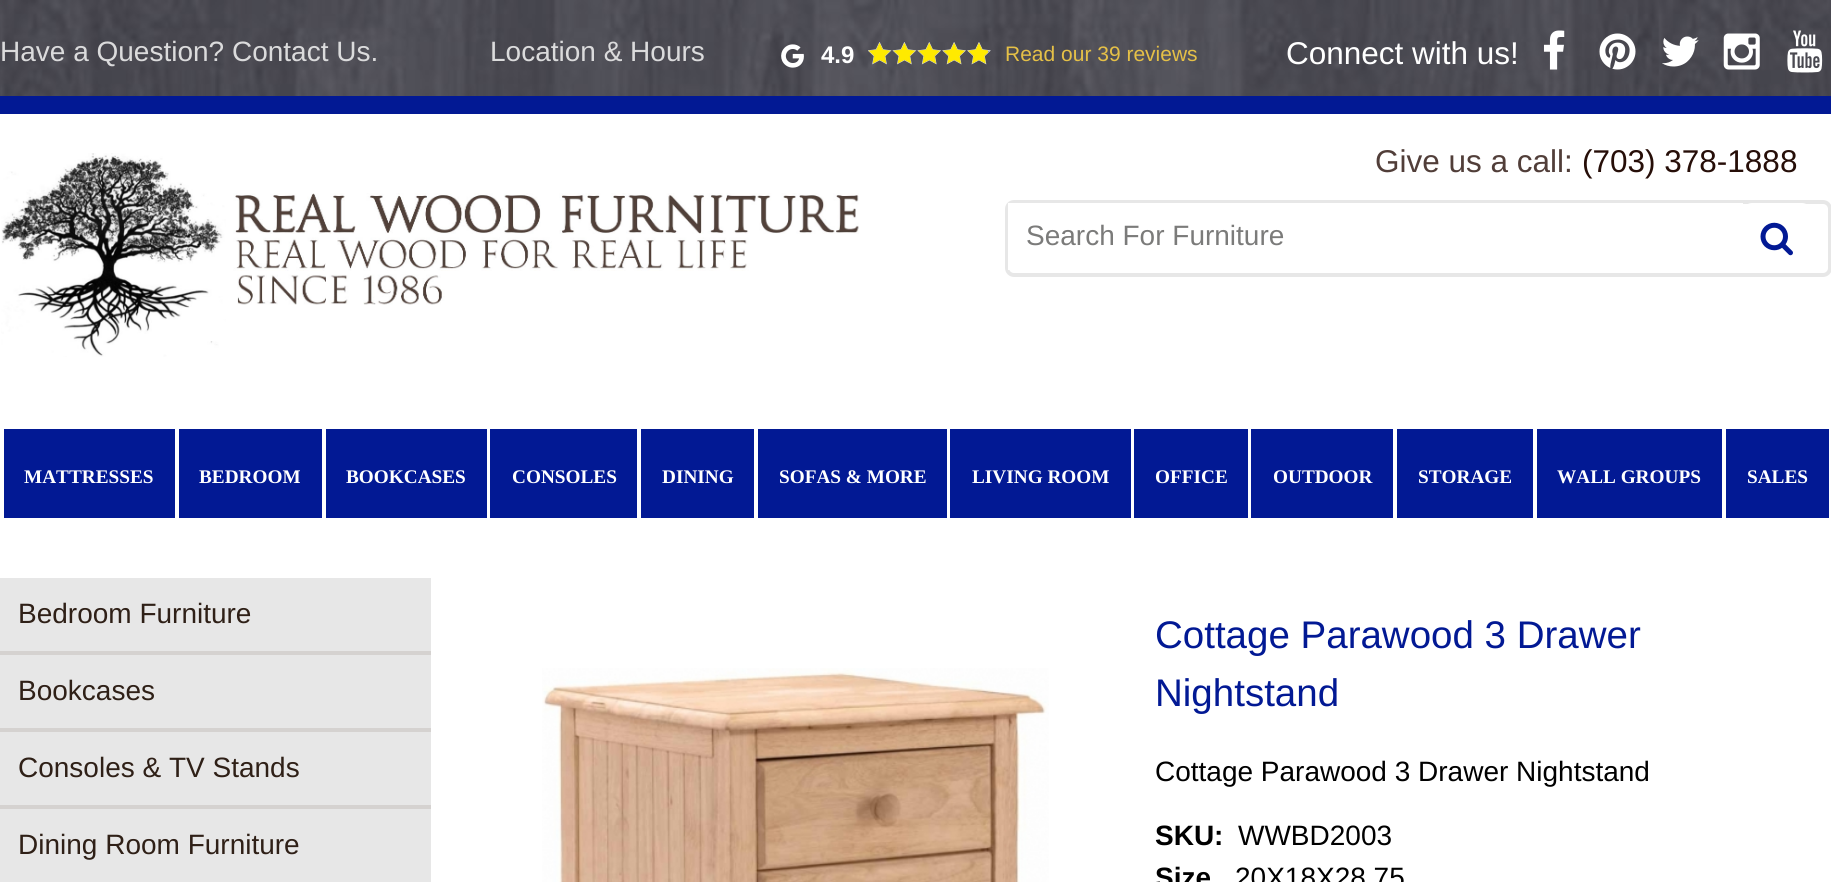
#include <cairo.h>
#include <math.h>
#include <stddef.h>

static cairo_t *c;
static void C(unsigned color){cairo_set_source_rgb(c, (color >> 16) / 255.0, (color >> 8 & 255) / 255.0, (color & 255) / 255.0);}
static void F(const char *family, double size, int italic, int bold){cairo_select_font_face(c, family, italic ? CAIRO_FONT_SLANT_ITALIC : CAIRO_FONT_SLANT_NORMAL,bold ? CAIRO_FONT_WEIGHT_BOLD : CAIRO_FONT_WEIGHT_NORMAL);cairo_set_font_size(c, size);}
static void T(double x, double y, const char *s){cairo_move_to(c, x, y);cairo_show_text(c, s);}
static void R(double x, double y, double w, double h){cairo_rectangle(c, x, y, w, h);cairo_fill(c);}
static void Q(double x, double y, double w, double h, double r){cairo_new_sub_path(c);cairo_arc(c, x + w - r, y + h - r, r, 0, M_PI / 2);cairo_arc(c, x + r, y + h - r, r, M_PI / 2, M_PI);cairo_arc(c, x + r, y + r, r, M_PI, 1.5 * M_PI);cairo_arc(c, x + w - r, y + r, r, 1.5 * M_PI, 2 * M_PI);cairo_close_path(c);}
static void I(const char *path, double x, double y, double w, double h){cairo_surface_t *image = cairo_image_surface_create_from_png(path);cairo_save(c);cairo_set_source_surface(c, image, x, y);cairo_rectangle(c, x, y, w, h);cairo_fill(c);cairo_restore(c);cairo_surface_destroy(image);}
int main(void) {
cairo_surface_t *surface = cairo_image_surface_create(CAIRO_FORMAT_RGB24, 1831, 882);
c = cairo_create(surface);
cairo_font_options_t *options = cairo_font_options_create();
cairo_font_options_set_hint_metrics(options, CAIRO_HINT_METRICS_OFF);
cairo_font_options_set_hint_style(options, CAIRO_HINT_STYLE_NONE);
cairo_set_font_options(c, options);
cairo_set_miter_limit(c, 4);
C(0xffffff);
cairo_paint(c);
I("1.png",0,0,1831,96);
C(0x021994);
R(0,96,1831,18);
F("Liberation Sans",28,0,0);
C(0xdbdbdc);
T(0,61,"Have a Question? Contact Us.");
T(490,61,"Location & Hours");
I("2.png",781,44,23,24);
F("Liberation Sans",24,0,1);
C(0xffffff);
T(821,63,"4.9");
I("3.png",868,42,123,23);
I("4.png",868,43,120,21);
F("Liberation Sans",21,0,0);
C(0xe5c047);
T(1005,61,"Read our 39 reviews");
F("Liberation Sans",31.5,0,0);
C(0xffffff);
T(1286,64,"Connect with us!");
I("5.png",1543,30,22,40);
I("6.png",1599,33,37,37);
I("7.png",1662,36,37,31);
I("8.png",1723,33,37,37);
I("9.png",1787,30,36,43);
I("10.png",1,153,858,204);
C(0x513e39);
T(1375,172,"Give us a call:");
C(0x260e08);
T(1582,172,"(703) 378-1888");
Q(1007,202,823,73,7);
C(0xe7e7e7);
cairo_set_line_width(c,4);
cairo_stroke(c);
C(0xffffff);
R(1008,203,735,67);
F("Liberation Sans",28,0,0);
C(0x7b7b7a);
T(1026,245,"Search For Furniture");
C(0xffffff);
Q(1743,203,68,70,9);
cairo_fill(c);
I("11.png",1760,222,33,34);
C(0x021994);
R(4,429,1825,89);
C(0xffffff);
R(175,429,4,89);
F("Liberation Serif",19.25,0,1);
T(24,483,"MATTRESSES");
R(322,429,4,89);
T(199,483,"BEDROOM");
R(487,429,3,89);
T(346,483,"BOOKCASES");
R(637,429,4,89);
T(512,483,"CONSOLES");
R(754,429,4,89);
T(662,483,"DINING");
R(947,429,3,89);
T(779,483,"SOFAS & MORE");
R(1131,429,3,89);
T(972,483,"LIVING ROOM");
R(1248,429,3,89);
T(1155,483,"OFFICE");
R(1393,429,4,89);
T(1273,483,"OUTDOOR");
R(1533,429,4,89);
T(1418,483,"STORAGE");
R(1722,429,4,89);
T(1557,483,"WALL GROUPS");
T(1747,483,"SALES");
C(0xe7e7e7);
R(0,578,431,304);
C(0xd5d2d0);
R(0,651,431,4);
F("Liberation Sans",28,0,0);
C(0x2f2017);
T(18,623,"Bedroom Furniture");
C(0xd5d2d0);
R(0,728,431,4);
C(0x2f2017);
T(18,700,"Bookcases");
C(0xd5d2d0);
R(0,805,431,4);
C(0x2f2017);
T(18,777,"Consoles & TV Stands");
T(18,854,"Dining Room Furniture");
I("12.png",542,668,507,214);
F("Liberation Sans",38.5,0,0);
C(0x021994);
T(1155,648,"Cottage Parawood 3 Drawer");
T(1155,706,"Nightstand");
F("Liberation Sans",28,0,0);
C(0x000000);
T(1155,781,"Cottage Parawood 3 Drawer Nightstand");
F("Liberation Sans",28,0,1);
T(1155,845,"SKU:");
F("Liberation Sans",28,0,0);
T(1238,845,"WWBD2003");
F("Liberation Sans",28,0,1);
T(1155,887,"Size");
F("Liberation Sans",28,0,0);
T(1235,887,"20X18X28.75");
cairo_surface_write_to_png(surface, "o.png");
cairo_font_options_destroy(options);
cairo_destroy(c);
cairo_surface_destroy(surface);
return 0;
}
